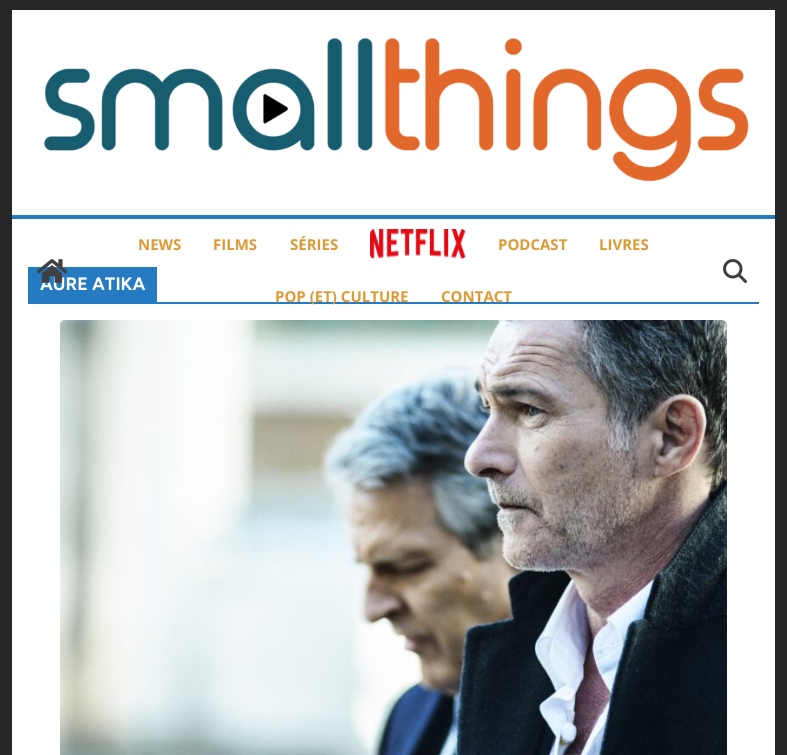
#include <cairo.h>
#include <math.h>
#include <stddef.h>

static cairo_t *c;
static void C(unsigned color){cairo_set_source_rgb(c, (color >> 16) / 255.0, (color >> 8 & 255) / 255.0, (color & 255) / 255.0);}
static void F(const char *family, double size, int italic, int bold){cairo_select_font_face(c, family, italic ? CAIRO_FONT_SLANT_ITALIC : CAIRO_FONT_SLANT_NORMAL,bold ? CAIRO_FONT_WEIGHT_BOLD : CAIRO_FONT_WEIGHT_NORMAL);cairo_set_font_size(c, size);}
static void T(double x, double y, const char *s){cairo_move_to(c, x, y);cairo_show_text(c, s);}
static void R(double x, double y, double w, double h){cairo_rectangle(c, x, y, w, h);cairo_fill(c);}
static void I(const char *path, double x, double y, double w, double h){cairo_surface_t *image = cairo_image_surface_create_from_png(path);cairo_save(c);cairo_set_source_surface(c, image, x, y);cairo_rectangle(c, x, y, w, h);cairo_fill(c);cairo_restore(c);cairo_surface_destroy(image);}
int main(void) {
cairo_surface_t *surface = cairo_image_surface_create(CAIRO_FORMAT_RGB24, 787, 755);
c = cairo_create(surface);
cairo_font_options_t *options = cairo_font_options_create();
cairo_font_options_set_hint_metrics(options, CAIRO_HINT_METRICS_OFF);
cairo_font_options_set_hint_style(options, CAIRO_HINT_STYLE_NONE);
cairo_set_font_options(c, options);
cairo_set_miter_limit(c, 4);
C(0x27272a);
cairo_paint(c);
C(0xffffff);
R(12,10,763,745);
C(0x257bc1);
R(28,302,731,2);
R(28,267,129,35);
F("Figtree",18,0,1);
C(0xffffff);
T(40,290,"AURE ATIKA");
I("1.png",60,320,667,435);
I("2.png",44,37,705,145);
C(0x257bc1);
R(12,215,763,4);
I("3.png",36,259,32,24);
F("Open Sans",15,0,1);
C(0xdd9933);
T(138,250,"NEWS");
T(213,250,"FILMS");
T(290,250,"SÉRIES");
I("4.png",370,229,96,30);
T(498,250,"PODCAST");
T(599,250,"LIVRES");
T(275,302,"POP (ET) CULTURE");
T(441,302,"CONTACT");
I("5.png",723,259,24,24);
cairo_surface_write_to_png(surface, "o.png");
cairo_font_options_destroy(options);
cairo_destroy(c);
cairo_surface_destroy(surface);
return 0;
}
